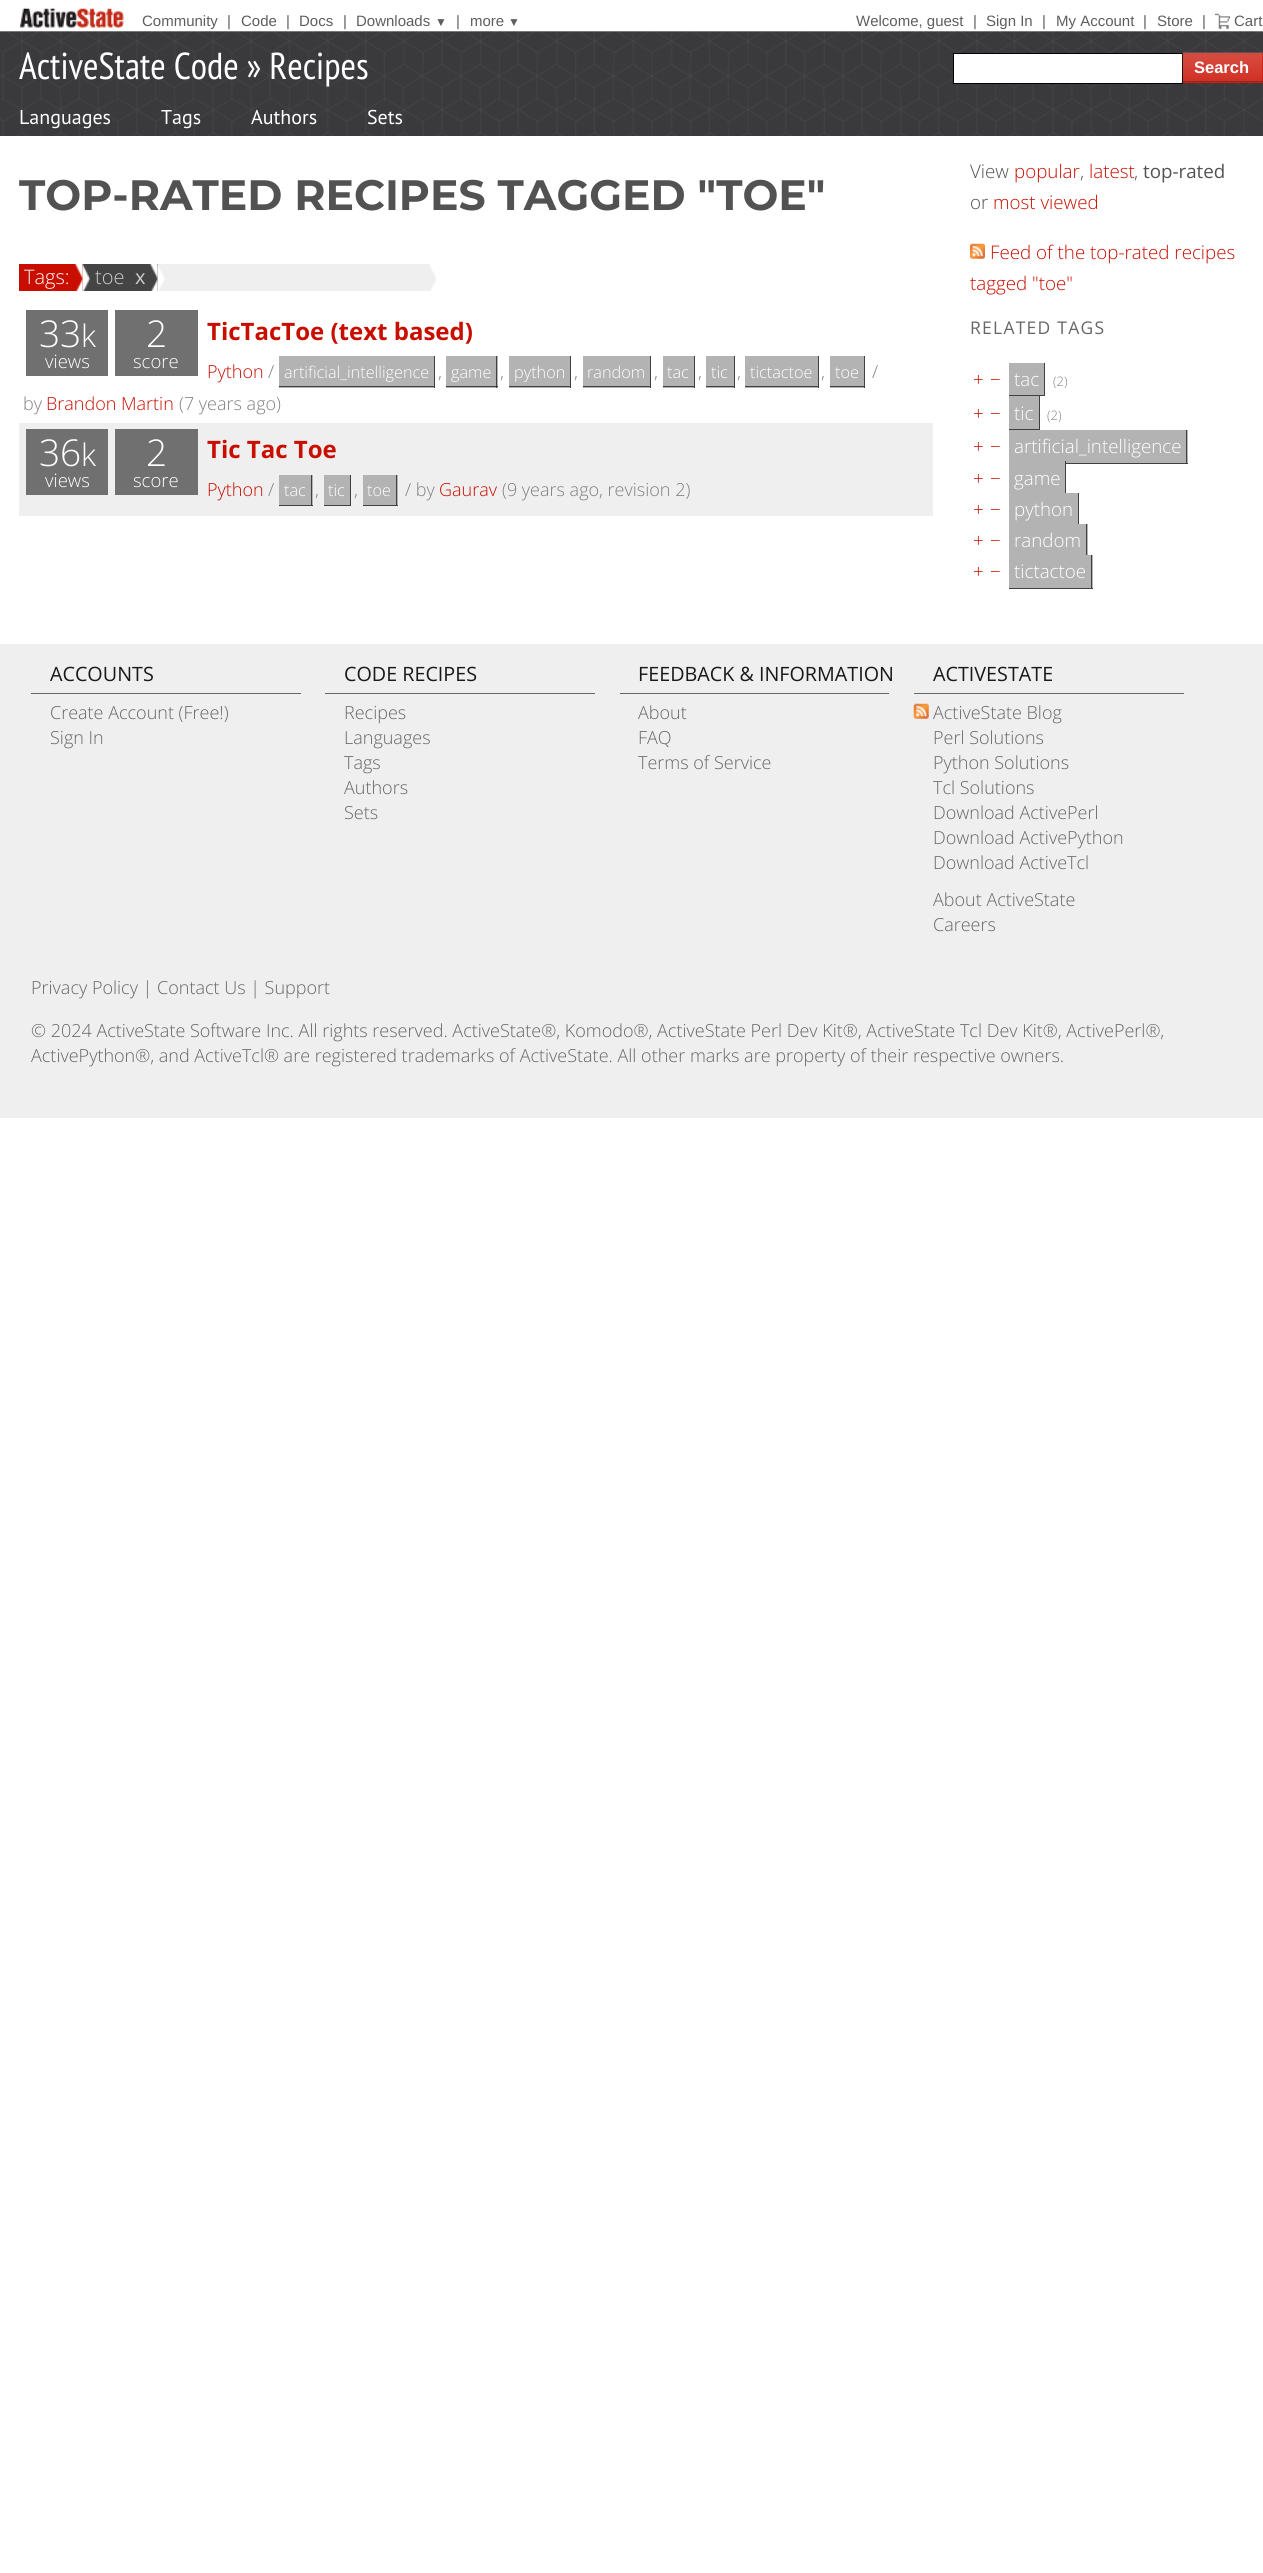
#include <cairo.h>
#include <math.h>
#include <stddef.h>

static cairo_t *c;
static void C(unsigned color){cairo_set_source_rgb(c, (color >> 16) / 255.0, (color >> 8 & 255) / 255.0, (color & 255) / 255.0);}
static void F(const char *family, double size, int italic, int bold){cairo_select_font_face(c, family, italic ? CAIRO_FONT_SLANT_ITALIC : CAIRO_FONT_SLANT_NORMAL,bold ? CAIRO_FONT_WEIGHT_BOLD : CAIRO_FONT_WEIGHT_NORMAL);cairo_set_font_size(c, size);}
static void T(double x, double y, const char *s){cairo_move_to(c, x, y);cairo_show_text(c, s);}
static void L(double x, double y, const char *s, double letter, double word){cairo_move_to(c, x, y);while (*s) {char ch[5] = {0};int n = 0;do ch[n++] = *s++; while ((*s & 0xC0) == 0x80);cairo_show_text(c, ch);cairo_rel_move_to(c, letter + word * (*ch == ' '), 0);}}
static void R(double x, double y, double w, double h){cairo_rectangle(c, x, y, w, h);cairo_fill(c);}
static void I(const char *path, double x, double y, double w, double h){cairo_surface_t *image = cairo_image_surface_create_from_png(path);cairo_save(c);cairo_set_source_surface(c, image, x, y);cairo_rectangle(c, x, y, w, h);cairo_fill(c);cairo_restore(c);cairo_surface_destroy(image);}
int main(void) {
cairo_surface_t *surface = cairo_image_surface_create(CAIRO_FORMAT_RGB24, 1263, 2573);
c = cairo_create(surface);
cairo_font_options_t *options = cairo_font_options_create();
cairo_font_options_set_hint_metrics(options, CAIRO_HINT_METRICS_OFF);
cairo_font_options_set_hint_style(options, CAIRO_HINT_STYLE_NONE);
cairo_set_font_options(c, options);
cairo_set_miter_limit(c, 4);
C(0xffffff);
cairo_paint(c);
I("1.png",0,31,1263,105);
I("2.png",19,7,105,21);
F("Liberation Sans",15,0,0);
C(0x5e5e5e);
T(142,26,"Community");
T(227,26,"|");
T(241,26,"Code");
T(286,26,"|");
T(299,26,"Docs");
T(343,26,"|");
T(356,26,"Downloads");
F("Liberation Sans",12,0,0);
T(435,26,"▼");
F("Liberation Sans",15,0,0);
T(456,26,"|");
T(470,26,"more");
F("Liberation Sans",12,0,0);
T(508,26,"▼");
F("Liberation Sans",15,0,0);
T(856,26,"Welcome, guest");
T(973,26,"|");
T(986,26,"Sign In");
T(1042,26,"|");
T(1056,26,"My Account");
T(1143,26,"|");
T(1157,26,"Store");
T(1202,26,"|");
I("3.png",1215,13,15,16);
T(1234,26,"Cart");
F("PT Sans Narrow",37.5,0,0);
C(0xffffff);
T(19,79,"ActiveState Code » Recipes");
cairo_rectangle(c,953.5,53.5,229,30);
cairo_fill_preserve(c);
C(0x000000);
cairo_set_line_width(c,1);
cairo_stroke(c);
C(0xc90e00);
R(1183,53,80,30);
I("4.png",1182,52,81,31);
cairo_set_source_rgba(c,0,0,0,0.25);
R(1183,81,80,1);
F("Liberation Sans",16.5,0,1);
C(0xffffff);
T(1194,73,"Search");
F("PT Sans",20,0,0);
T(19,124,"Languages");
T(161,124,"Tags");
T(251,124,"Authors");
T(367,124,"Sets");
F("Montserrat",42.5,0,1);
C(0x525252);
T(19,210,"TOP-RATED RECIPES TAGGED \"TOE\"");
C(0xc90e00);
R(19,264,64,27);
F("Open Sans Light",20,0,0);
C(0xffffff);
T(24,284,"Tags:");
I("5.png",75,264,8,27);
C(0x444444);
R(83,264,75,27);
I("6.png",82,264,8,27);
C(0xcccccc);
T(95,284,"toe");
F("Open Sans",20,0,0);
T(135,284,"x");
I("7.png",150,264,8,27);
C(0xefefef);
R(158,264,278,27);
I("8.png",157,264,8,27);
I("9.png",429,264,7,27);
C(0x707070);
R(26,310,82,66);
F("Open Sans Light",37,0,0);
C(0xffffff);
T(39,347,"33");
F("Open Sans Light",31,0,0);
T(81,347,"k");
F("Open Sans Light",18.5,0,0);
T(45,368,"views");
C(0x707070);
R(115,310,83,66);
F("Open Sans Light",37,0,0);
C(0xffffff);
T(146,347,"2");
F("Open Sans Light",18.5,0,0);
T(133,368,"score");
F("Open Sans",24,0,1);
C(0xc90e00);
T(207,340,"TicTacToe (text based)");
F("Open Sans Light",18,0,0);
T(207,378,"Python");
C(0x808080);
T(268,378,"/");
C(0xb3b3b3);
R(279,356,155,32);
F("Open Sans Light",16.25,0,0);
C(0xffffff);
T(284,378,"artificial_intelligence");
C(0x404041);
R(434,356,1,32);
R(279,386,156,1);
F("Open Sans Light",18,0,0);
C(0x808080);
T(438,378,",");
C(0xb3b3b3);
R(446,356,52,32);
F("Open Sans Light",16.25,0,0);
C(0xffffff);
T(451,378,"game");
C(0x404041);
R(496,356,1,32);
R(446,386,52,1);
F("Open Sans Light",18,0,0);
C(0x808080);
T(500,378,",");
C(0xb3b3b3);
R(509,356,61,32);
F("Open Sans Light",16.25,0,0);
C(0xffffff);
T(514,378,"python");
C(0x404041);
R(570,356,1,32);
R(509,386,62,1);
F("Open Sans Light",18,0,0);
C(0x808080);
T(574,378,",");
C(0xb3b3b3);
R(583,356,67,32);
F("Open Sans Light",16.25,0,0);
C(0xffffff);
T(587,378,"random");
C(0x404041);
R(650,356,1,32);
R(583,386,68,1);
F("Open Sans Light",18,0,0);
C(0x808080);
T(654,378,",");
C(0xb3b3b3);
R(663,356,31,32);
F("Open Sans Light",16.25,0,0);
C(0xffffff);
T(667,378,"tac");
C(0x404041);
R(694,356,1,32);
R(663,386,32,1);
F("Open Sans Light",18,0,0);
C(0x808080);
T(698,378,",");
C(0xb3b3b3);
R(706,356,28,32);
F("Open Sans Light",16.25,0,0);
C(0xffffff);
T(711,378,"tic");
C(0x404041);
R(734,356,1,32);
R(706,386,29,1);
F("Open Sans Light",18,0,0);
C(0x808080);
T(737,378,",");
C(0xb3b3b3);
R(745,356,73,32);
F("Open Sans Light",16.25,0,0);
C(0xffffff);
T(750,378,"tictactoe");
C(0x404041);
R(818,356,1,32);
R(745,386,74,1);
F("Open Sans Light",18,0,0);
C(0x808080);
T(821,378,",");
C(0xb3b3b3);
R(830,356,34,32);
F("Open Sans Light",16.25,0,0);
C(0xffffff);
T(835,378,"toe");
C(0x404041);
R(864,356,1,32);
R(830,386,35,1);
F("Open Sans Light",18,0,0);
C(0x808080);
T(872,378,"/");
T(23,410,"by");
C(0xc90e00);
T(46,410,"Brandon Martin");
C(0x808080);
T(179,410,"(7 years ago)");
C(0xefefef);
R(19,423,914,93);
C(0x707070);
R(26,429,82,66);
F("Open Sans Light",37,0,0);
C(0xffffff);
T(39,466,"36");
F("Open Sans Light",31,0,0);
T(81,466,"k");
F("Open Sans Light",18.5,0,0);
T(45,487,"views");
C(0x707070);
R(115,429,83,66);
F("Open Sans Light",37,0,0);
C(0xffffff);
T(146,466,"2");
F("Open Sans Light",18.5,0,0);
T(133,487,"score");
F("Open Sans",24,0,1);
C(0xc90e00);
T(207,458,"Tic Tac Toe");
F("Open Sans Light",18,0,0);
T(207,496,"Python");
C(0x808080);
T(268,496,"/");
C(0xb3b3b3);
R(279,475,34,30);
F("Open Sans Light",16.25,0,0);
C(0xffffff);
T(284,496,"tac");
C(0x404041);
R(311,475,1,31);
R(279,505,34,1);
F("Open Sans Light",18,0,0);
C(0x808080);
T(315,496,",");
C(0xb3b3b3);
R(324,475,26,30);
F("Open Sans Light",16.25,0,0);
C(0xffffff);
T(328,496,"tic");
C(0x404041);
R(350,475,1,31);
R(324,505,27,1);
F("Open Sans Light",18,0,0);
C(0x808080);
T(354,496,",");
C(0xb3b3b3);
R(363,475,35,30);
F("Open Sans Light",16.25,0,0);
C(0xffffff);
T(367,496,"toe");
C(0x404041);
R(396,475,1,31);
R(363,505,35,1);
F("Open Sans Light",18,0,0);
C(0x808080);
T(405,496,"/ by");
C(0xc90e00);
T(439,496,"Gaurav");
C(0x808080);
T(502,496,"(9 years ago, revision 2)");
F("Open Sans Light",18.75,0,0);
C(0x525252);
T(970,178,"View");
C(0xc90e00);
T(1014,178,"popular");
C(0x525252);
T(1080,178,",");
C(0xc90e00);
T(1089,178,"latest");
C(0x525252);
T(1134,178,",");
F("Open Sans",18.75,0,0);
T(1143,178,"top-rated");
F("Open Sans Light",18.75,0,0);
T(970,209,"or");
C(0xc90e00);
T(993,209,"most viewed");
I("10.png",970,243,15,16);
T(990,259,"Feed of the top-rated recipes");
T(970,290,"tagged \"toe\"");
F("Open Sans",17.5,0,0);
C(0x666666);
L(970,334,"RELATED TAGS",1.25,0);
F("Open Sans Light",18.75,0,0);
C(0xc90e00);
T(973,386,"+");
T(990,386,"−");
C(0xb3b3b3);
R(1009,363,35,32);
C(0xffffff);
T(1014,386,"tac");
C(0x404041);
R(1044,363,1,33);
R(1009,395,36,1);
F("Open Sans Light",13,0,0);
C(0x808080);
T(1053,386,"(2)");
F("Open Sans Light",18.75,0,0);
C(0xc90e00);
T(973,420,"+");
T(990,420,"−");
C(0xb3b3b3);
R(1009,396,30,33);
C(0xffffff);
T(1014,420,"tic");
C(0x404041);
R(1039,396,1,34);
R(1009,429,31,1);
F("Open Sans Light",13,0,0);
C(0x808080);
T(1047,420,"(2)");
F("Open Sans Light",18.75,0,0);
C(0xc90e00);
T(973,453,"+");
T(990,453,"−");
C(0xb3b3b3);
R(1009,430,179,33);
C(0xffffff);
T(1014,453,"artificial_intelligence");
C(0x404041);
R(1186,430,1,34);
R(1066,463,122,1);
C(0xc90e00);
T(973,485,"+");
T(990,485,"−");
C(0xb3b3b3);
R(1009,463,56,30);
C(0xffffff);
T(1014,485,"game");
C(0x404041);
R(1065,461,1,34);
C(0xc90e00);
T(973,516,"+");
T(990,516,"−");
C(0xb3b3b3);
R(1009,493,69,31);
C(0xffffff);
T(1014,516,"python");
C(0x404041);
R(1078,493,1,33);
C(0xc90e00);
T(973,547,"+");
T(990,547,"−");
C(0xb3b3b3);
R(1009,524,79,31);
C(0xffffff);
T(1014,547,"random");
C(0x404041);
R(1086,524,1,34);
C(0xc90e00);
T(973,578,"+");
T(990,578,"−");
C(0xb3b3b3);
R(1009,555,84,33);
C(0xffffff);
T(1014,578,"tictactoe");
C(0x404041);
R(1091,555,1,34);
R(1009,588,84,1);
C(0xefefef);
R(0,644,1263,474);
C(0x666666);
R(31,693,270,1);
F("Open Sans",19.75,0,0);
C(0x191919);
T(50,681,"ACCOUNTS");
F("Open Sans Light",18,0,0);
C(0x666666);
T(50,719,"Create Account (Free!)");
T(50,744,"Sign In");
R(325,693,270,1);
F("Open Sans",19.75,0,0);
C(0x191919);
T(344,681,"CODE RECIPES");
F("Open Sans Light",18,0,0);
C(0x666666);
T(344,719,"Recipes");
T(344,744,"Languages");
T(344,769,"Tags");
T(344,794,"Authors");
T(344,819,"Sets");
R(620,693,269,1);
F("Open Sans",19.75,0,0);
C(0x191919);
T(638,681,"FEEDBACK & INFORMATION");
F("Open Sans Light",18,0,0);
C(0x666666);
T(638,719,"About");
T(638,744,"FAQ");
T(638,769,"Terms of Service");
R(914,693,270,1);
F("Open Sans",19.75,0,0);
C(0x191919);
T(933,681,"ACTIVESTATE");
I("11.png",913,703,16,16);
F("Open Sans Light",18,0,0);
C(0x666666);
T(933,719,"ActiveState Blog");
T(933,744,"Perl Solutions");
T(933,769,"Python Solutions");
T(933,794,"Tcl Solutions");
T(933,819,"Download ActivePerl");
T(933,844,"Download ActivePython");
T(933,869,"Download ActiveTcl");
T(933,906,"About ActiveState");
T(933,931,"Careers");
T(31,994,"Privacy Policy | Contact Us | Support");
T(31,1037,"© 2024 ActiveState Software Inc. All rights reserved. ActiveState®, Komodo®, ActiveState Perl Dev Kit®, ActiveState Tcl Dev Kit®, ActivePerl®,");
T(31,1062,"ActivePython®, and ActiveTcl® are registered trademarks of ActiveState. All other marks are property of their respective owners.");
cairo_surface_write_to_png(surface, "o.png");
cairo_font_options_destroy(options);
cairo_destroy(c);
cairo_surface_destroy(surface);
return 0;
}
